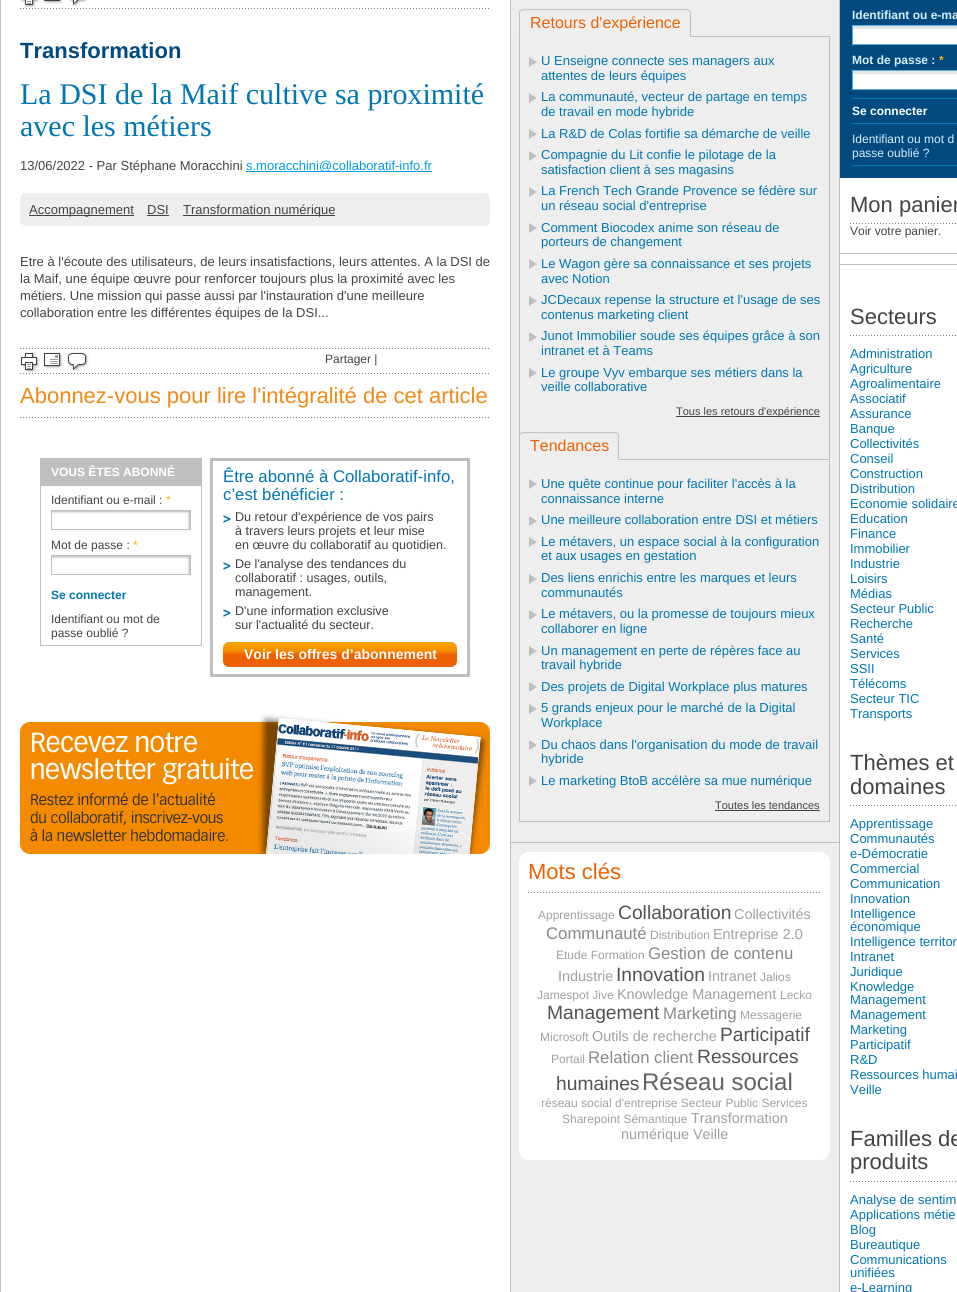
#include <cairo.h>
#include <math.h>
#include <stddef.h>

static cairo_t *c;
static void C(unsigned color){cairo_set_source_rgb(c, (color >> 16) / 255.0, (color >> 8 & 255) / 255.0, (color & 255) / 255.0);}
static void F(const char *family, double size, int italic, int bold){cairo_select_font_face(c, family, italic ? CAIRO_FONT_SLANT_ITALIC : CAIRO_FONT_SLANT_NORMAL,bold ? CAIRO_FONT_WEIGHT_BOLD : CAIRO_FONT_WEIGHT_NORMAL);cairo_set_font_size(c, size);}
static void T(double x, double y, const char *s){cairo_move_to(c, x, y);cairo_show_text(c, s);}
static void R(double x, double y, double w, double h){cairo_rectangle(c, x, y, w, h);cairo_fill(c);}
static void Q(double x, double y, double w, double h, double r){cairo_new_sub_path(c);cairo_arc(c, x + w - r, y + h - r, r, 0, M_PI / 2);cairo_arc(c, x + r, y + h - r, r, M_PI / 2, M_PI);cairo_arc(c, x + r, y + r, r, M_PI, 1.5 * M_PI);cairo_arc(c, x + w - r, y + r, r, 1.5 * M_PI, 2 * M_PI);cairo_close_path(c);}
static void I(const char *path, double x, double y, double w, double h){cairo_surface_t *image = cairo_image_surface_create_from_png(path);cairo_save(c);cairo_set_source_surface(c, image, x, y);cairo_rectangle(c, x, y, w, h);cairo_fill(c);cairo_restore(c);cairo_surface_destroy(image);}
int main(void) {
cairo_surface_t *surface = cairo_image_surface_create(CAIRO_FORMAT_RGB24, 957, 1292);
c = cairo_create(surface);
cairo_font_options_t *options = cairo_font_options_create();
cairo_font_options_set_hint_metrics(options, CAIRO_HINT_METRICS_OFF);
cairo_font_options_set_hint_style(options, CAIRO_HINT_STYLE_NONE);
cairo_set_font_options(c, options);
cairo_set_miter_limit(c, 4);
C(0xffffff);
cairo_paint(c);
I("1.png",0,0,840,1292);
I("2.png",20,8,469,1);
I("3.png",20,0,20,8);
I("4.png",43,0,20,4);
I("5.png",68,0,20,7);
F("Liberation Sans",22,0,1);
C(0x004a7f);
T(20,58,"Transformation");
F("Liberation Serif",30,0,0);
C(0x0077b2);
T(20,104,"La DSI de la Maif cultive sa proximité");
T(20,136,"avec les métiers");
F("Liberation Sans",13,0,0);
C(0x434343);
T(20,170,"13/06/2022 - Par Stéphane Moracchini");
C(0x009de0);
R(246,171,186,1);
T(246,170,"s.moracchini@collaboratif-info.fr");
C(0xeeeeee);
Q(20,193,470,33,6);
cairo_fill(c);
C(0x434343);
R(29,215,105,1);
T(29,214,"Accompagnement");
T(147,214,"DSI");
R(147,215,22,1);
R(183,215,152,1);
T(183,214,"Transformation numérique");
T(20,266,"Etre à l'écoute des utilisateurs, de leurs insatisfactions, leurs attentes. A la DSI de");
T(20,283,"la Maif, une équipe œuvre pour renforcer toujours plus la proximité avec les");
T(20,300,"métiers. Une mission qui passe aussi par l'instauration d'une meilleure");
T(20,317,"collaboration entre les différentes équipes de la DSI...");
I("2.png",20,348,469,1);
I("2.png",20,373,469,1);
I("6.png",20,352,20,21);
I("7.png",43,352,20,17);
I("8.png",67,352,22,20);
F("Liberation Sans",12,0,0);
T(325,363,"Partager |");
I("2.png",20,417,469,1);
F("Liberation Sans",22,0,0);
C(0xf08a16);
T(20,403,"Abonnez-vous pour lire l'intégralité de cet article");
cairo_rectangle(c,40.5,458.5,161,187);
C(0xbfbfbf);
cairo_set_line_width(c,1);
cairo_stroke(c);
R(41,459,160,27);
F("Liberation Sans",12,0,1);
C(0xffffff);
T(51,476,"VOUS ÊTES ABONNÉ");
F("Liberation Sans",12,0,0);
C(0x434343);
T(51,504,"Identifiant ou e-mail :");
C(0xffae00);
T(166,504,"*");
I("9.png",52,511,138,18);
cairo_rectangle(c,51.5,510.5,139,19);
C(0xbfbfbf);
cairo_stroke(c);
C(0x434343);
T(51,549,"Mot de passe :");
C(0xffae00);
T(133,549,"*");
I("9.png",52,556,138,18);
cairo_rectangle(c,51.5,555.5,139,19);
C(0xbfbfbf);
cairo_stroke(c);
F("Liberation Sans",12,0,1);
C(0x0077b2);
T(51,599,"Se connecter");
F("Liberation Sans",12,0,0);
C(0x434343);
T(51,623,"Identifiant ou mot de");
T(51,637,"passe oublié ?");
cairo_rectangle(c,211.5,459.5,257,216);
C(0xbfbfbf);
cairo_set_line_width(c,3);
cairo_stroke(c);
F("Liberation Sans",16.75,0,0);
C(0x0077b2);
T(223,482,"Être abonné à Collaboratif-info,");
T(223,500,"c’est bénéficier :");
I("10.png",223,515,8,8);
F("Liberation Sans",12.6,0,0);
C(0x434343);
T(235,521,"Du retour d'expérience de vos pairs");
T(235,535,"à travers leurs projets et leur mise");
T(235,549,"en œuvre du collaboratif au quotidien.");
I("10.png",223,562,8,8);
T(235,568,"De l'analyse des tendances du");
T(235,582,"collaboratif : usages, outils,");
T(235,596,"management.");
I("10.png",223,609,8,8);
T(235,615,"D'une information exclusive");
T(235,629,"sur l'actualité du secteur.");
I("11.png",223,642,228,25);
I("12.png",451,642,6,25);
F("Liberation Sans",14,0,1);
C(0xffffff);
T(244,659,"Voir les offres d’abonnement");
I("13.png",20,714,470,140);
I("14.png",519,9,311,28);
I("15.png",522,9,169,28);
F("Liberation Sans",16,0,0);
C(0xef6000);
T(530,28,"Retours d'expérience");
C(0xbfbfbf);
R(829,37,1,785);
R(519,37,1,380);
I("16.png",529,57,8,10);
F("Liberation Sans",13,0,0);
C(0x0077b2);
T(541,65,"U Enseigne connecte ses managers aux");
T(541,80,"attentes de leurs équipes");
I("16.png",529,93,8,10);
T(541,101,"La communauté, vecteur de partage en temps");
T(541,116,"de travail en mode hybride");
I("16.png",529,129,8,10);
T(541,138,"La R&D de Colas fortifie sa démarche de veille");
I("16.png",529,151,8,10);
T(541,159,"Compagnie du Lit confie le pilotage de la");
T(541,174,"satisfaction client à ses magasins");
I("16.png",529,187,8,10);
T(541,195,"La French Tech Grande Provence se fédère sur");
T(541,210,"un réseau social d'entreprise");
I("16.png",529,223,8,10);
T(541,232,"Comment Biocodex anime son réseau de");
T(541,246,"porteurs de changement");
I("16.png",529,259,8,10);
T(541,268,"Le Wagon gère sa connaissance et ses projets");
T(541,283,"avec Notion");
I("16.png",529,296,8,10);
T(541,304,"JCDecaux repense la structure et l'usage de ses");
T(541,319,"contenus marketing client");
I("16.png",529,332,8,10);
T(541,340,"Junot Immobilier soude ses équipes grâce à son");
T(541,355,"intranet et à Teams");
I("16.png",529,368,8,10);
T(541,377,"Le groupe Vyv embarque ses métiers dans la");
T(541,391,"veille collaborative");
C(0x434343);
R(676,416,144,1);
F("Liberation Sans",11,0,0);
T(676,415,"Tous les retours d'expérience");
C(0xbfbfbf);
R(510,842,329,1);
R(519,821,311,1);
R(519,417,1,405);
I("17.png",520,432,309,28);
I("18.png",522,432,97,28);
F("Liberation Sans",16,0,0);
C(0xef6000);
T(530,451,"Tendances");
I("16.png",529,479,8,10);
F("Liberation Sans",13,0,0);
C(0x0077b2);
T(541,488,"Une quête continue pour faciliter l'accès à la");
T(541,503,"connaissance interne");
I("16.png",529,516,8,10);
T(541,524,"Une meilleure collaboration entre DSI et métiers");
I("16.png",529,537,8,10);
T(541,546,"Le métavers, un espace social à la configuration");
T(541,560,"et aux usages en gestation");
I("16.png",529,574,8,10);
T(541,582,"Des liens enrichis entre les marques et leurs");
T(541,597,"communautés");
I("16.png",529,610,8,10);
T(541,618,"Le métavers, ou la promesse de toujours mieux");
T(541,633,"collaborer en ligne");
I("16.png",529,646,8,10);
T(541,655,"Un management en perte de répères face au");
T(541,669,"travail hybride");
I("16.png",529,682,8,10);
T(541,691,"Des projets de Digital Workplace plus matures");
I("16.png",529,704,8,10);
T(541,712,"5 grands enjeux pour le marché de la Digital");
T(541,727,"Workplace");
I("16.png",529,740,8,10);
T(541,749,"Du chaos dans l'organisation du mode de travail");
T(541,763,"hybride");
I("16.png",529,776,8,10);
T(541,785,"Le marketing BtoB accélère sa mue numérique");
F("Liberation Sans",11,0,0);
C(0x434343);
T(715,809,"Toutes les tendances");
R(715,810,105,1);
C(0xffffff);
Q(519,852,311,308,10);
cairo_fill(c);
I("19.png",528,892,292,1);
F("Liberation Sans",22,0,0);
C(0xef6000);
T(528,879,"Mots clés");
F("Liberation Sans",12,0,0);
C(0xa0a0a0);
T(538,919,"Apprentissage");
F("Liberation Sans",19.25,0,0);
C(0x535353);
T(618,919,"Collaboration");
F("Liberation Sans",14.4,0,0);
C(0xa0a0a0);
T(734,919,"Collectivités");
F("Liberation Sans",16.75,0,0);
C(0x898989);
T(546,939,"Communauté");
F("Liberation Sans",12,0,0);
C(0xa0a0a0);
T(650,939,"Distribution");
F("Liberation Sans",14.4,0,0);
T(713,939,"Entreprise 2.0");
F("Liberation Sans",12,0,0);
T(556,959,"Etude Formation");
F("Liberation Sans",16.75,0,0);
C(0x898989);
T(648,959,"Gestion de contenu");
F("Liberation Sans",14.4,0,0);
C(0xa0a0a0);
T(558,981,"Industrie");
F("Liberation Sans",19.25,0,0);
C(0x535353);
T(616,981,"Innovation");
F("Liberation Sans",14.4,0,0);
C(0xa0a0a0);
T(708,981,"Intranet");
F("Liberation Sans",12,0,0);
T(760,981,"Jalios");
T(537,999,"Jamespot Jive");
F("Liberation Sans",14.4,0,0);
T(617,999,"Knowledge Management");
F("Liberation Sans",12,0,0);
T(780,999,"Lecko");
F("Liberation Sans",19.25,0,0);
C(0x535353);
T(547,1019,"Management");
F("Liberation Sans",16.75,0,0);
C(0x898989);
T(663,1019,"Marketing");
F("Liberation Sans",12,0,0);
C(0xa0a0a0);
T(740,1019,"Messagerie");
T(540,1041,"Microsoft");
F("Liberation Sans",14.4,0,0);
T(592,1041,"Outils de recherche");
F("Liberation Sans",19.25,0,0);
C(0x535353);
T(720,1041,"Participatif");
F("Liberation Sans",12,0,0);
C(0xa0a0a0);
T(551,1063,"Portail");
F("Liberation Sans",16.75,0,0);
C(0x898989);
T(588,1063,"Relation client");
F("Liberation Sans",19.25,0,0);
C(0x535353);
T(697,1063,"Ressources");
T(556,1090,"humaines");
F("Liberation Sans",24,0,0);
C(0x626262);
T(642,1090,"Réseau social");
F("Liberation Sans",12,0,0);
C(0xa0a0a0);
T(541,1107,"réseau social d'entreprise Secteur Public Services");
T(562,1123,"Sharepoint Sémantique");
F("Liberation Sans",14.4,0,0);
T(691,1123,"Transformation");
T(621,1139,"numérique");
T(693,1139,"Veille");
C(0x004a7f);
R(840,0,117,178);
F("Liberation Sans",12,0,1);
C(0xd5eefa);
T(852,19,"Identifiant ou e-ma");
C(0xffffff);
R(853,29,104,15);
C(0xe5e5e5);
R(852,26,105,3);
cairo_rectangle(c,852.5,25.5,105,19);
C(0x59b0d5);
cairo_set_line_width(c,1);
cairo_stroke(c);
C(0xd5eefa);
T(852,64,"Mot de passe :");
C(0xffae00);
T(939,64,"*");
C(0xffffff);
R(853,74,104,15);
C(0xe5e5e5);
R(852,71,105,3);
cairo_rectangle(c,852.5,70.5,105,19);
C(0x59b0d5);
cairo_stroke(c);
C(0x0077b2);
R(852,98,105,1);
R(852,123,105,1);
C(0xffffff);
T(852,115,"Se connecter");
C(0x0077b2);
R(852,165,105,1);
F("Liberation Sans",12,0,0);
C(0xd5eefa);
T(852,143,"Identifiant ou mot d");
T(852,157,"passe oublié ?");
C(0xbfbfbf);
R(840,253,117,1);
I("20.png",850,223,106,1);
F("Liberation Sans",22,0,0);
C(0x434343);
T(850,212,"Mon panier");
F("Liberation Sans",12,0,0);
T(850,235,"Voir votre panier.");
C(0xbfbfbf);
R(840,264,117,1);
I("20.png",850,335,106,1);
F("Liberation Sans",22,0,0);
C(0x434343);
T(850,324,"Secteurs");
F("Liberation Sans",13,0,0);
C(0x0077b2);
T(850,358,"Administration");
T(850,373,"Agriculture");
T(850,388,"Agroalimentaire");
T(850,403,"Associatif");
T(850,418,"Assurance");
T(850,433,"Banque");
T(850,448,"Collectivités");
T(850,463,"Conseil");
T(850,478,"Construction");
T(850,493,"Distribution");
T(850,508,"Economie solidaire");
T(850,523,"Education");
T(850,538,"Finance");
T(850,553,"Immobilier");
T(850,568,"Industrie");
T(850,583,"Loisirs");
T(850,598,"Médias");
T(850,613,"Secteur Public");
T(850,628,"Recherche");
T(850,643,"Santé");
T(850,658,"Services");
T(850,673,"SSII");
T(850,688,"Télécoms");
T(850,703,"Secteur TIC");
T(850,718,"Transports");
I("20.png",850,805,106,1);
F("Liberation Sans",22,0,0);
C(0x434343);
T(850,770,"Thèmes et");
T(850,794,"domaines");
F("Liberation Sans",13,0,0);
C(0x0077b2);
T(850,828,"Apprentissage");
T(850,843,"Communautés");
T(850,858,"e-Démocratie");
T(850,873,"Commercial");
T(850,888,"Communication");
T(850,903,"Innovation");
T(850,918,"Intelligence");
T(850,931,"économique");
T(850,946,"Intelligence territor");
T(850,961,"Intranet");
T(850,976,"Juridique");
T(850,991,"Knowledge");
T(850,1004,"Management");
T(850,1019,"Management");
T(850,1034,"Marketing");
T(850,1049,"Participatif");
T(850,1064,"R&D");
T(850,1079,"Ressources humai");
T(850,1094,"Veille");
I("20.png",850,1181,106,1);
F("Liberation Sans",22,0,0);
C(0x434343);
T(850,1146,"Familles de");
T(850,1169,"produits");
F("Liberation Sans",13,0,0);
C(0x0077b2);
T(850,1204,"Analyse de sentim");
T(850,1219,"Applications métie");
T(850,1234,"Blog");
T(850,1249,"Bureautique");
T(850,1264,"Communications");
T(850,1277,"unifiées");
T(850,1292,"e-Learning");
cairo_surface_write_to_png(surface, "o.png");
cairo_font_options_destroy(options);
cairo_destroy(c);
cairo_surface_destroy(surface);
return 0;
}
